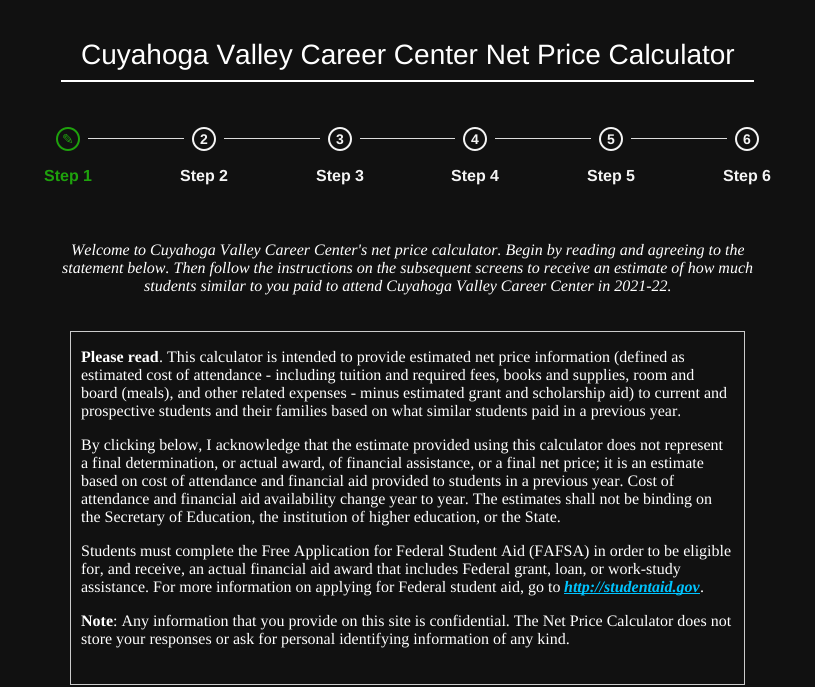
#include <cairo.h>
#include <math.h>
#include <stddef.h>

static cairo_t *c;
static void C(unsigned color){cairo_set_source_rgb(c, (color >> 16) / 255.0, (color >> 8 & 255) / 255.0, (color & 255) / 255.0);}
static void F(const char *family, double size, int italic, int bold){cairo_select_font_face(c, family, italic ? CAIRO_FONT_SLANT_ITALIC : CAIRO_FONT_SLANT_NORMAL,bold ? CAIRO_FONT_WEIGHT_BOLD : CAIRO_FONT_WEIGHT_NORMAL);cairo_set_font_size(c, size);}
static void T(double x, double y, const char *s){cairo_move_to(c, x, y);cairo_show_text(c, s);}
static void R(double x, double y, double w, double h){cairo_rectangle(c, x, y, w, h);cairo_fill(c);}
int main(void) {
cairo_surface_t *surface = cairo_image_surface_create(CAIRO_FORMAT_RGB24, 815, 687);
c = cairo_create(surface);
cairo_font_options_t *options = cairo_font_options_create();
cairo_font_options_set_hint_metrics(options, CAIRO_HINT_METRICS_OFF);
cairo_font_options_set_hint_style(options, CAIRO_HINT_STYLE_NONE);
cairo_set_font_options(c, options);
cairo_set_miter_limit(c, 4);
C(0x111111);
cairo_paint(c);
C(0xffffff);
R(61,80,693,2);
F("Liberation Sans",28,0,0);
T(81,64,"Cuyahoga Valley Career Center Net Price Calculator");
cairo_new_path(c);
cairo_arc(c,68,139,11,0,2 * M_PI);
C(0x1ea20c);
cairo_stroke(c);
F("DejaVu Sans",14,0,0);
T(62,144,"✎");
C(0xdddddd);
R(88,138,96,1);
F("Liberation Sans",16,0,1);
C(0x1ea20c);
T(44,181,"Step 1");
cairo_new_path(c);
cairo_arc(c,204,139,11,0,2 * M_PI);
C(0xf5f5f5);
cairo_stroke(c);
F("Liberation Sans",14,0,1);
T(200,144,"2");
C(0xdddddd);
R(224,138,96,1);
F("Liberation Sans",16,0,1);
C(0xf5f5f5);
T(180,181,"Step 2");
cairo_new_path(c);
cairo_arc(c,340,139,11,0,2 * M_PI);
cairo_stroke(c);
F("Liberation Sans",14,0,1);
T(336,144,"3");
C(0xdddddd);
R(360,138,95,1);
F("Liberation Sans",16,0,1);
C(0xf5f5f5);
T(316,181,"Step 3");
cairo_new_path(c);
cairo_arc(c,475,139,11,0,2 * M_PI);
cairo_stroke(c);
F("Liberation Sans",14,0,1);
T(471,144,"4");
C(0xdddddd);
R(495,138,96,1);
F("Liberation Sans",16,0,1);
C(0xf5f5f5);
T(451,181,"Step 4");
cairo_new_path(c);
cairo_arc(c,611,139,11,0,2 * M_PI);
cairo_stroke(c);
F("Liberation Sans",14,0,1);
T(607,144,"5");
C(0xdddddd);
R(631,138,96,1);
F("Liberation Sans",16,0,1);
C(0xf5f5f5);
T(587,181,"Step 5");
cairo_new_path(c);
cairo_arc(c,747,139,11,0,2 * M_PI);
cairo_stroke(c);
F("Liberation Sans",14,0,1);
T(743,144,"6");
F("Liberation Sans",16,0,1);
T(723,181,"Step 6");
F("Liberation Serif",16,1,0);
C(0xffffff);
T(71,255,"Welcome to Cuyahoga Valley Career Center's net price calculator. Begin by reading and agreeing to the");
T(62,273,"statement below. Then follow the instructions on the subsequent screens to receive an estimate of how much");
T(144,291,"students similar to you paid to attend Cuyahoga Valley Career Center in 2021-22.");
cairo_rectangle(c,70.5,331.5,674,353);
C(0xcccccc);
cairo_set_line_width(c,1);
cairo_stroke(c);
F("Liberation Serif",16,0,1);
C(0xffffff);
T(81,362,"Please read");
F("Liberation Serif",16,0,0);
T(159,362,". This calculator is intended to provide estimated net price information (defined as");
T(81,380,"estimated cost of attendance - including tuition and required fees, books and supplies, room and");
T(81,398,"board (meals), and other related expenses - minus estimated grant and scholarship aid) to current and");
T(81,416,"prospective students and their families based on what similar students paid in a previous year.");
T(81,450,"By clicking below, I acknowledge that the estimate provided using this calculator does not represent");
T(81,468,"a final determination, or actual award, of financial assistance, or a final net price; it is an estimate");
T(81,486,"based on cost of attendance and financial aid provided to students in a previous year. Cost of");
T(81,504,"attendance and financial aid availability change year to year. The estimates shall not be binding on");
T(81,522,"the Secretary of Education, the institution of higher education, or the State.");
T(81,556,"Students must complete the Free Application for Federal Student Aid (FAFSA) in order to be eligible");
T(81,574,"for, and receive, an actual financial aid award that includes Federal grant, loan, or work-study");
T(81,592,"assistance. For more information on applying for Federal student aid, go to");
C(0x00c4ff);
R(564,593,136,1);
F("Liberation Serif",16,1,1);
T(564,592,"http://studentaid.gov");
F("Liberation Serif",16,0,0);
C(0xffffff);
T(700,592,".");
F("Liberation Serif",16,0,1);
T(81,626,"Note");
F("Liberation Serif",16,0,0);
T(113,626,": Any information that you provide on this site is confidential. The Net Price Calculator does not");
T(81,644,"store your responses or ask for personal identifying information of any kind.");
cairo_surface_write_to_png(surface, "o.png");
cairo_font_options_destroy(options);
cairo_destroy(c);
cairo_surface_destroy(surface);
return 0;
}
